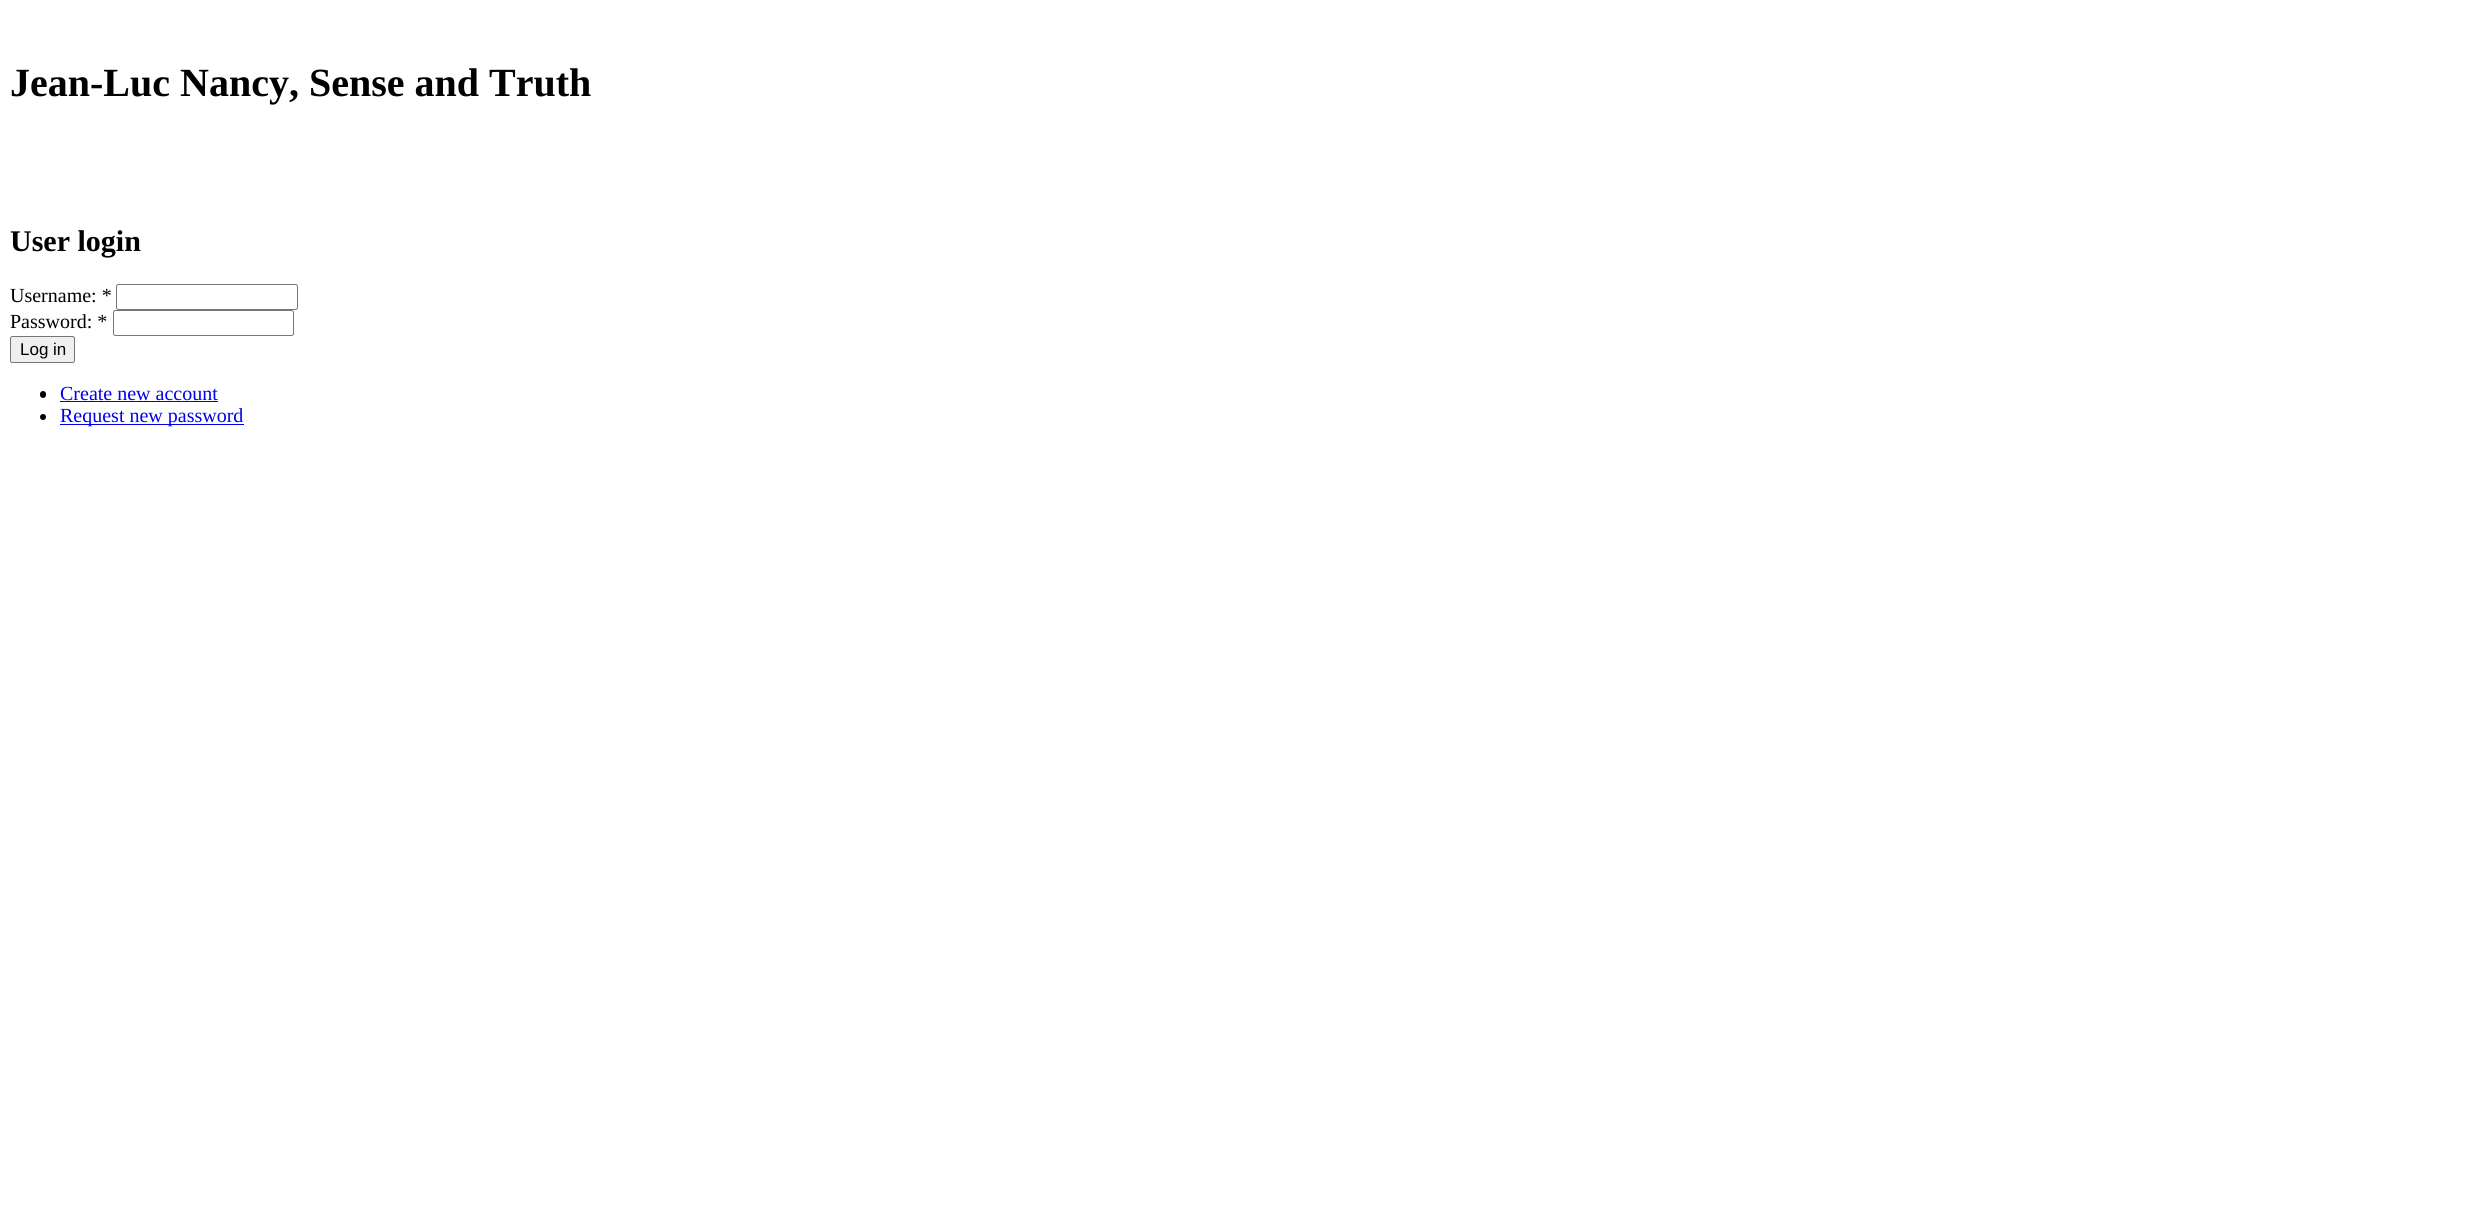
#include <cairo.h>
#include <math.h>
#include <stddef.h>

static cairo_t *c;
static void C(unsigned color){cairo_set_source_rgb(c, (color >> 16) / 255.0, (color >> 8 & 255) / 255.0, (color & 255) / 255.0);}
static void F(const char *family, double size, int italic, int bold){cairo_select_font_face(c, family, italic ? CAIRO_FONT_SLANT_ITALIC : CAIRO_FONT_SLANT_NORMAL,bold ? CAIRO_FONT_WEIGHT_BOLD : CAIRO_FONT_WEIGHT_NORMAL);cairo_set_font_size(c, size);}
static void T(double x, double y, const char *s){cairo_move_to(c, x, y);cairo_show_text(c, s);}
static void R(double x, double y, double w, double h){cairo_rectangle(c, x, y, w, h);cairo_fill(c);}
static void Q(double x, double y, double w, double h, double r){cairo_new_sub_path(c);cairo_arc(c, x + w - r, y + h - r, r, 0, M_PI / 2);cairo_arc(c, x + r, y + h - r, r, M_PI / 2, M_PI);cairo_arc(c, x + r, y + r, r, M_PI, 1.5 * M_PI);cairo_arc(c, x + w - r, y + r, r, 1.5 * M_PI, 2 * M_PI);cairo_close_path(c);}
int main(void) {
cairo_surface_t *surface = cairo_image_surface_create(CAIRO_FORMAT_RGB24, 2490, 1210);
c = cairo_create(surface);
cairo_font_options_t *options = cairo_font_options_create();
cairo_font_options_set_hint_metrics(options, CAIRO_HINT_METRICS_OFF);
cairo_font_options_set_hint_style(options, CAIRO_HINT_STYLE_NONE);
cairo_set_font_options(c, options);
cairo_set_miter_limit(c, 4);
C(0xffffff);
cairo_paint(c);
F("Liberation Serif",40,0,1);
C(0x000000);
T(10,96,"Jean-Luc Nancy, Sense and Truth");
F("Liberation Serif",30,0,1);
T(10,251,"User login");
F("Liberation Serif",20,0,0);
T(10,302,"Username: *");
Q(116.5,284.5,181,25,2);
C(0x767676);
cairo_set_line_width(c,1);
cairo_stroke(c);
C(0x000000);
T(10,328,"Password: *");
Q(113.5,310.5,180,25,2);
C(0x767676);
cairo_stroke(c);
C(0xefefef);
Q(10.5,336.5,64,26,2);
cairo_fill_preserve(c);
C(0x767676);
cairo_stroke(c);
F("Liberation Sans",17,0,0);
C(0x000000);
T(20,355,"Log in");
Q(40,391,6,7,3);
cairo_fill(c);
F("Liberation Serif",20,0,0);
C(0x0000ee);
T(60,400,"Create new account");
R(60,401,158,1);
C(0x000000);
cairo_new_path(c);
cairo_arc(c,43,417,3,0,2 * M_PI);
cairo_fill(c);
C(0x0000ee);
R(60,424,184,1);
T(60,422,"Request new password");
cairo_surface_write_to_png(surface, "o.png");
cairo_font_options_destroy(options);
cairo_destroy(c);
cairo_surface_destroy(surface);
return 0;
}
